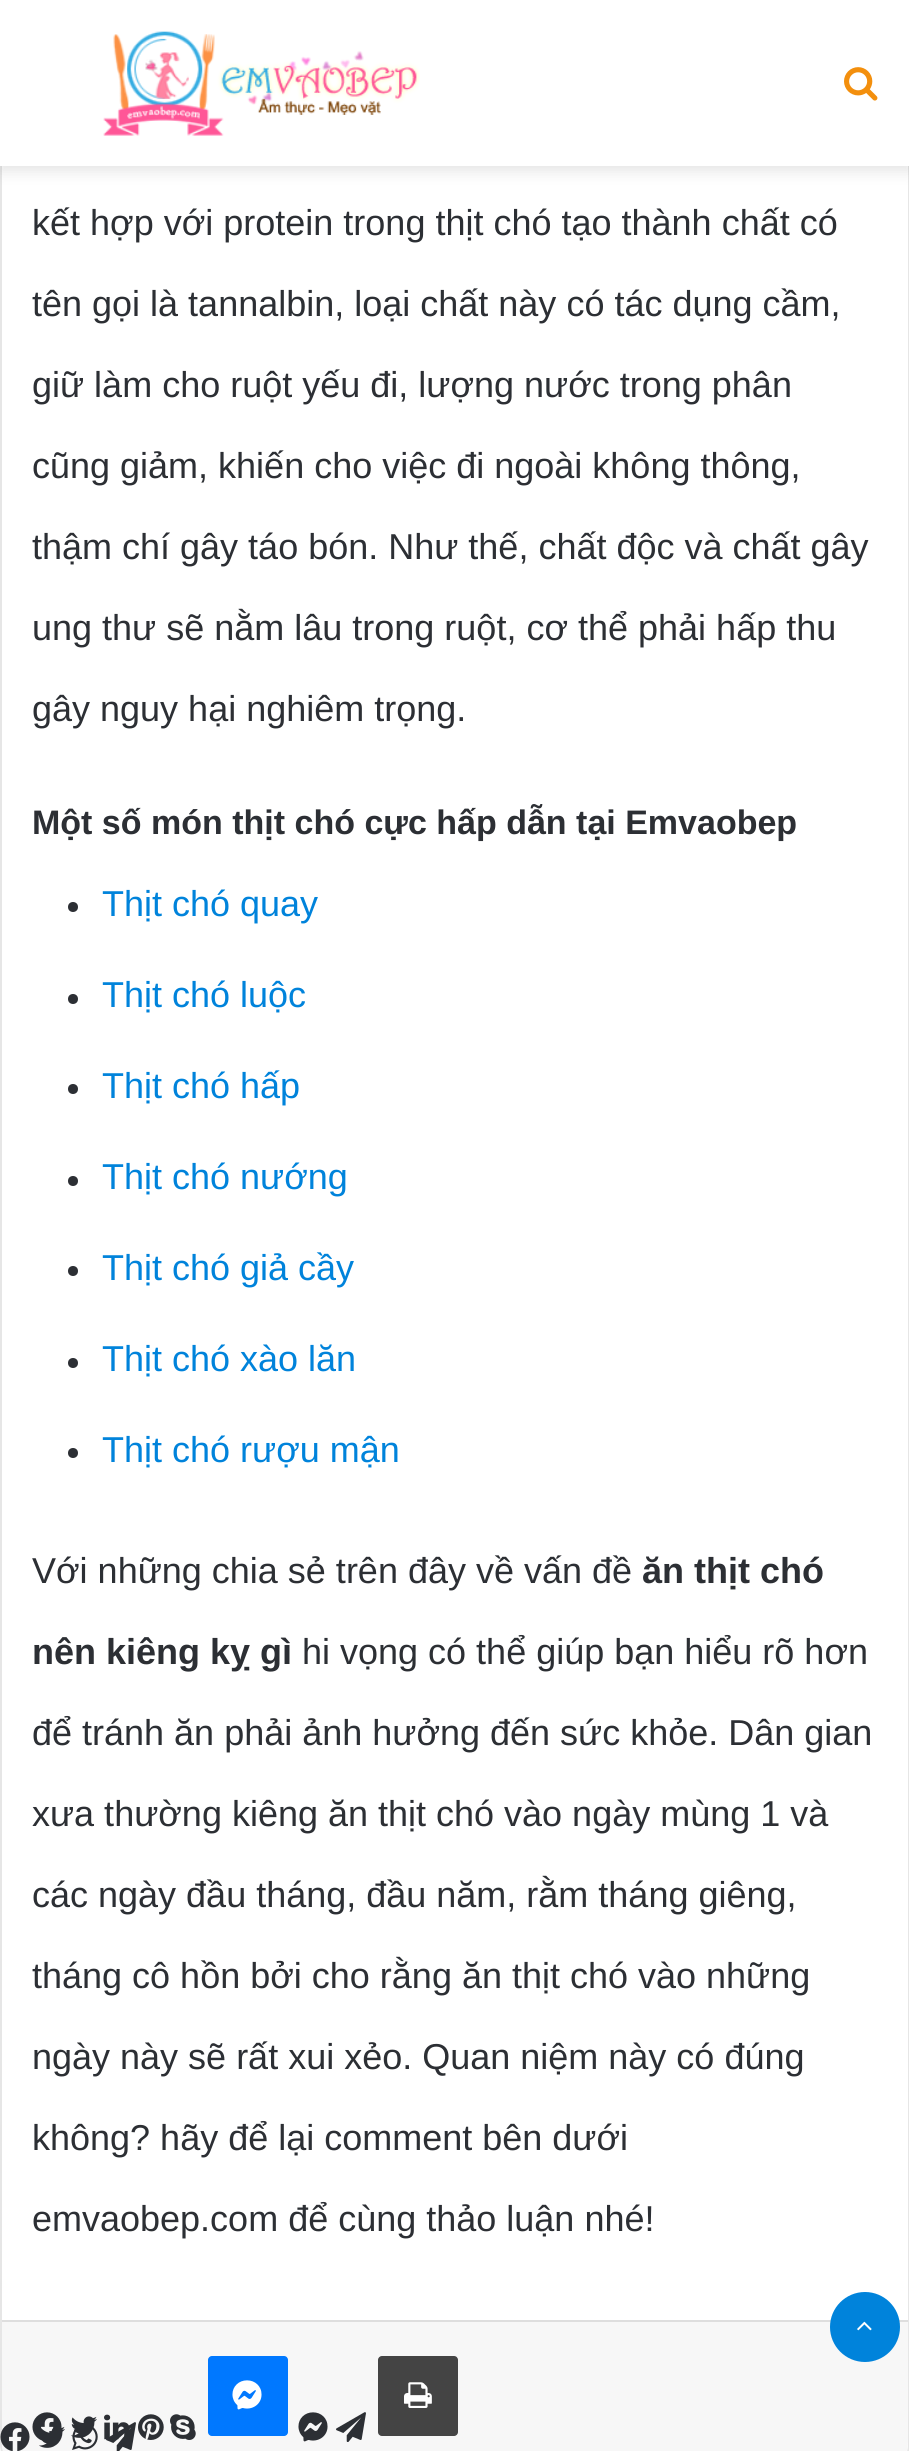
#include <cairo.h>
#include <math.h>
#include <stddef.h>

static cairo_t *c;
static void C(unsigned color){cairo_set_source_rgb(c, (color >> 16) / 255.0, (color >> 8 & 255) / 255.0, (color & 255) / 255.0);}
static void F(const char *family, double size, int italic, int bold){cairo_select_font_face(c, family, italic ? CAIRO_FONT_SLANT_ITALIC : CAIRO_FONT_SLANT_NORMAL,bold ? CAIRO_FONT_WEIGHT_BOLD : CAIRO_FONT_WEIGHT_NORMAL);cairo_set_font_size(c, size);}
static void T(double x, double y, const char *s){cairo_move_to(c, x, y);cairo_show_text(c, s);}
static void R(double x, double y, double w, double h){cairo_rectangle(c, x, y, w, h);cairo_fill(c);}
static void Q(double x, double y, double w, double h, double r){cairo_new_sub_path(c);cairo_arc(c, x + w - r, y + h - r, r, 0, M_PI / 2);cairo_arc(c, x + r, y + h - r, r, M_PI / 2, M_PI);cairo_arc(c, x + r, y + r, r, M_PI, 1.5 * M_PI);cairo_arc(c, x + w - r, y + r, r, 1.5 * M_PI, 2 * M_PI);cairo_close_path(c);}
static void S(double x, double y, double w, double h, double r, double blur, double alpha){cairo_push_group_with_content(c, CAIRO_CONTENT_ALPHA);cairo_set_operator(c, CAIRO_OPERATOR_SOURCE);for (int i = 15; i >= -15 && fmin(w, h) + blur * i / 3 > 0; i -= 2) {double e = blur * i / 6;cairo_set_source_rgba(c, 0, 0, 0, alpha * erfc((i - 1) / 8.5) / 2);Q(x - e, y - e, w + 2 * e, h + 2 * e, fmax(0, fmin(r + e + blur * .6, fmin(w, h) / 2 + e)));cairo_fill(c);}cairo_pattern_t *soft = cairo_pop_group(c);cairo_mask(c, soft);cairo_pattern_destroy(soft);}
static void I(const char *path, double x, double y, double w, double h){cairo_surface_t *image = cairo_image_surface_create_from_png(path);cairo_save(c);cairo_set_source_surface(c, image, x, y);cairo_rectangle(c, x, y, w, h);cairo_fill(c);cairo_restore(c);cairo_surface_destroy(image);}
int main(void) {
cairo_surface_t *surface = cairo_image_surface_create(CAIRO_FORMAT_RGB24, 909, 2451);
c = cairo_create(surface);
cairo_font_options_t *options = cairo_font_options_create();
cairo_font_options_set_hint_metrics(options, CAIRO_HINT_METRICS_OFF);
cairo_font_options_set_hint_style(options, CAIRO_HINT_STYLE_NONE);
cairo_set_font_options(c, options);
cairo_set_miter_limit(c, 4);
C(0xffffff);
cairo_paint(c);
Q(1,-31,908,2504,29);
C(0xe6e6e6);
cairo_stroke(c);
C(0x000000);
S(0,6,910,166,0,7,.1);
C(0xffffff);
R(0,0,909,166);
I("1.png",103,31,317,105);
I("2.png",844,67,34,34);
F("Liberation Sans",36,0,0);
C(0x2c2f34);
T(32,235,"kết hợp với protein trong thịt chó tạo thành chất có");
T(32,316,"tên gọi là tannalbin, loại chất này có tác dụng cầm,");
T(32,397,"giữ làm cho ruột yếu đi, lượng nước trong phân");
T(32,478,"cũng giảm, khiến cho việc đi ngoài không thông,");
T(32,559,"thậm chí gây táo bón. Như thế, chất độc và chất gây");
T(32,640,"ung thư sẽ nằm lâu trong ruột, cơ thể phải hấp thu");
T(32,721,"gây nguy hại nghiêm trọng.");
F("Liberation Sans",34,0,1);
T(32,834,"Một số món thịt chó cực hấp dẫn tại Emvaobep");
cairo_new_path(c);
cairo_arc(c,73,907,5,0,2 * M_PI);
cairo_fill(c);
F("Liberation Sans",36,0,0);
C(0x0083db);
T(102,916,"Thịt chó quay");
C(0x2c2f34);
cairo_new_path(c);
cairo_arc(c,73,999,5,0,2 * M_PI);
cairo_fill(c);
C(0x0083db);
T(102,1007,"Thịt chó luộc");
C(0x2c2f34);
cairo_new_path(c);
cairo_arc(c,73,1089,5,0,2 * M_PI);
cairo_fill(c);
C(0x0083db);
T(102,1098,"Thịt chó hấp");
C(0x2c2f34);
cairo_new_path(c);
cairo_arc(c,73,1181,5,0,2 * M_PI);
cairo_fill(c);
C(0x0083db);
T(102,1189,"Thịt chó nướng");
C(0x2c2f34);
cairo_new_path(c);
cairo_arc(c,73,1271,5,0,2 * M_PI);
cairo_fill(c);
C(0x0083db);
T(102,1280,"Thịt chó giả cầy");
C(0x2c2f34);
cairo_new_path(c);
cairo_arc(c,73,1363,5,0,2 * M_PI);
cairo_fill(c);
C(0x0083db);
T(102,1371,"Thịt chó xào lăn");
C(0x2c2f34);
cairo_new_path(c);
cairo_arc(c,73,1453,5,0,2 * M_PI);
cairo_fill(c);
C(0x0083db);
T(102,1462,"Thịt chó rượu mận");
C(0x2c2f34);
T(32,1583,"Với những chia sẻ trên đây về vấn đề");
F("Liberation Sans",36,0,1);
T(642,1583,"ăn thịt chó");
T(32,1664,"nên kiêng kỵ gì");
F("Liberation Sans",36,0,0);
T(302,1664,"hi vọng có thể giúp bạn hiểu rõ hơn");
T(32,1745,"để tránh ăn phải ảnh hưởng đến sức khỏe. Dân gian");
T(32,1826,"xưa thường kiêng ăn thịt chó vào ngày mùng 1 và");
T(32,1907,"các ngày đầu tháng, đầu năm, rằm tháng giêng,");
T(32,1988,"tháng cô hồn bởi cho rằng ăn thịt chó vào những");
T(32,2069,"ngày này sẽ rất xui xẻo. Quan niệm này có đúng");
T(32,2150,"không? hãy để lại comment bên dưới");
T(32,2231,"emvaobep.com để cùng thảo luận nhé!");
C(0xf7f7f7);
cairo_new_path(c);
cairo_move_to(c,2,2320);
cairo_line_to(c,908,2320);
cairo_line_to(c,908,2442);
cairo_curve_to(c,908,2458.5,894.5,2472,878,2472);
cairo_line_to(c,32,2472);
cairo_curve_to(c,15.5,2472,2,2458.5,2,2442);
cairo_close_path(c);
cairo_fill(c);
C(0xdedede);
R(2,2320,906,2);
I("3.png",32,2412,30,29);
I("4.png",71,2416,26,22);
I("5.png",104,2414,26,26);
I("6.png",138,2414,26,26);
I("7.png",170,2414,26,26);
C(0x0078ff);
Q(208,2356,80,80,4);
cairo_fill(c);
I("8.png",232,2380,30,30);
I("9.png",298,2412,30,30);
I("10.png",336,2412,30,30);
C(0x444444);
Q(378,2356,80,80,4);
cairo_fill(c);
I("11.png",404,2382,28,26);
C(0x0083db);
cairo_arc(c,865,2327,35,0,2 * M_PI);
cairo_fill(c);
I("12.png",857,2321,15,10);
I("13.png",0,2422,30,29);
I("14.png",39,2426,26,22);
I("15.png",72,2427,26,23);
I("16.png",106,2422,30,29);
cairo_surface_write_to_png(surface, "o.png");
cairo_font_options_destroy(options);
cairo_destroy(c);
cairo_surface_destroy(surface);
return 0;
}
